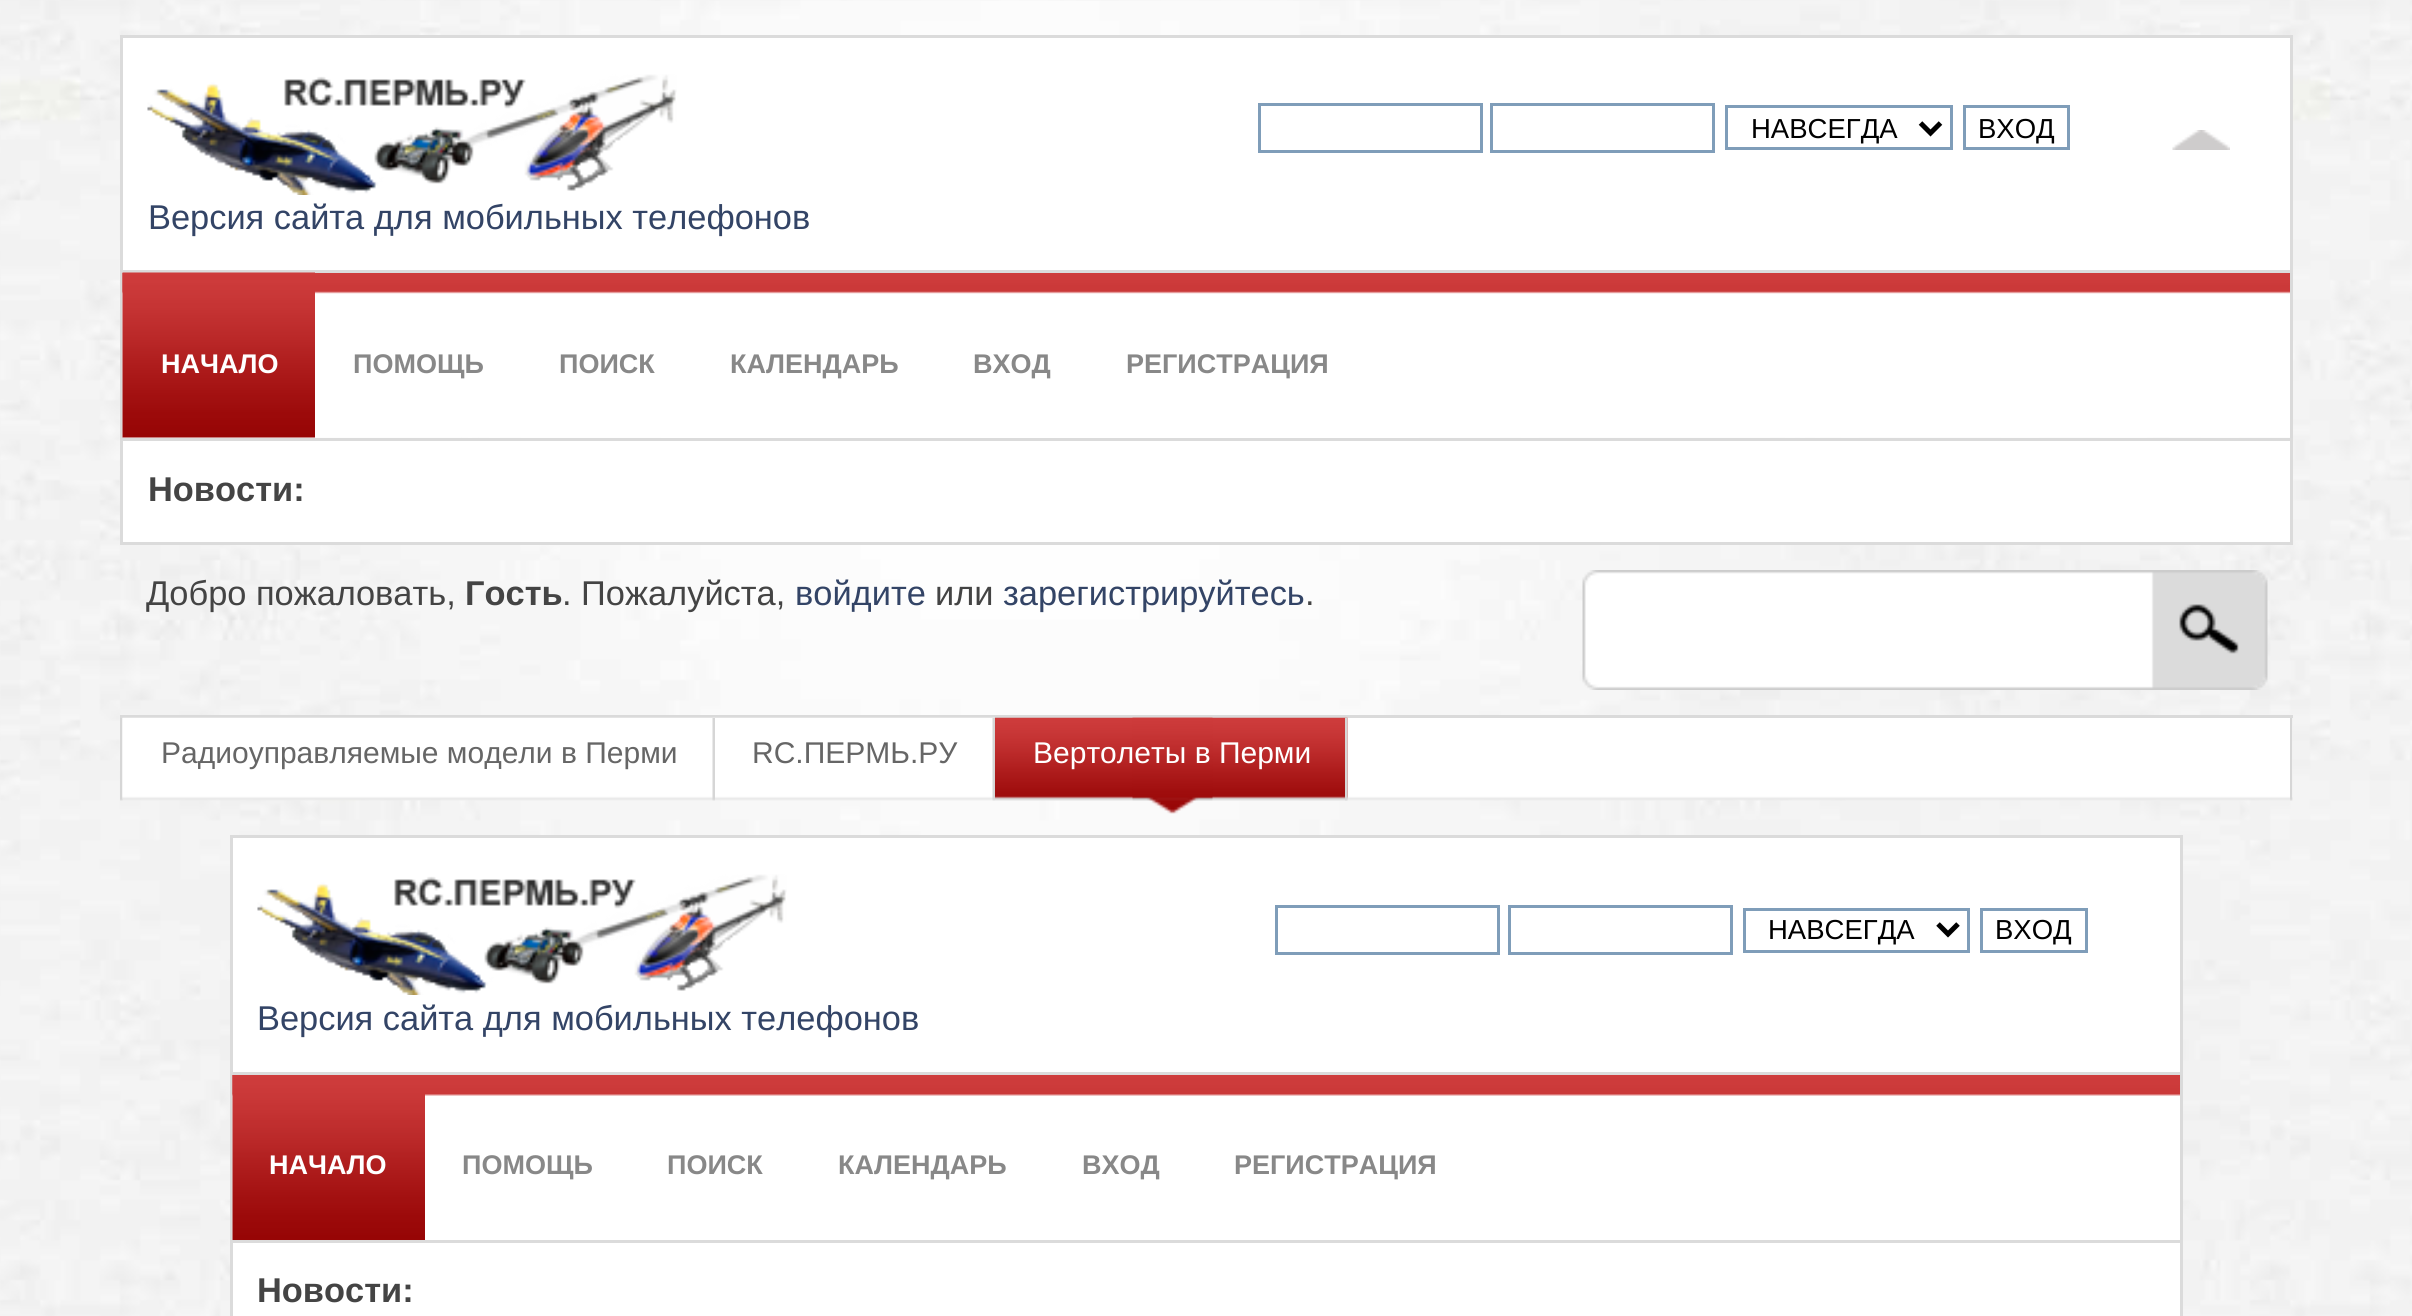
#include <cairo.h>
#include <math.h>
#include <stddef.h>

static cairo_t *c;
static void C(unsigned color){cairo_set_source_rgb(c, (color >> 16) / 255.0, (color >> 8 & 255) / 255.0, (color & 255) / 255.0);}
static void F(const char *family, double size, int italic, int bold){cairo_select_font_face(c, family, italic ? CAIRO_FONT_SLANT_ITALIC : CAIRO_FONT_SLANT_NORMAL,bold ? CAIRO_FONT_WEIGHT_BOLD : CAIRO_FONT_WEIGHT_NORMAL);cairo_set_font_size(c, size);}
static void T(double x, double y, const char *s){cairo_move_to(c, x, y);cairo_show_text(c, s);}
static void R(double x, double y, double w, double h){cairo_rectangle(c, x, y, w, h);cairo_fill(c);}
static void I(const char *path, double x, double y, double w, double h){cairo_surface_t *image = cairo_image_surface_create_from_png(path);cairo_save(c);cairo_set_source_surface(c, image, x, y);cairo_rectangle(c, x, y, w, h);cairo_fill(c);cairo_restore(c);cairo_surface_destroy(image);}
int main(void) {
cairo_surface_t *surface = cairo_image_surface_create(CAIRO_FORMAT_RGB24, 2412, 1316);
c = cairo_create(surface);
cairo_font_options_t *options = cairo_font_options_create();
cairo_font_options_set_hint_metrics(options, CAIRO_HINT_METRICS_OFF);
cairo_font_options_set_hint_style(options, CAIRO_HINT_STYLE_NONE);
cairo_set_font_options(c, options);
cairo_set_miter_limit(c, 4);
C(0xffffff);
cairo_paint(c);
I("1.png",0,0,2412,1316);
C(0xffffff);
cairo_rectangle(c,121.5,36.5,2170,235);
cairo_fill_preserve(c);
C(0xdbdbdb);
cairo_set_line_width(c,3);
cairo_stroke(c);
I("2.png",147,74,530,121);
cairo_rectangle(c,1259.5,104.5,222,47);
C(0x7f9db9);
cairo_stroke(c);
cairo_rectangle(c,1491.5,104.5,222,47);
cairo_stroke(c);
cairo_rectangle(c,1726.5,106.5,225,42);
cairo_stroke(c);
cairo_new_path(c);
cairo_move_to(c,1920.5,123);
cairo_line_to(c,1930.5,133);
cairo_line_to(c,1940.5,123);
C(0x000000);
cairo_set_line_width(c,5);
cairo_stroke(c);
F("Liberation Sans",27.5,0,0);
T(1751,138,"НАВСЕГДА");
cairo_rectangle(c,1964.5,106.5,104,42);
C(0x7f9db9);
cairo_set_line_width(c,3);
cairo_stroke(c);
C(0x000000);
T(1978,138,"ВХОД");
I("3.png",2172,130,58,20);
F("Liberation Sans",34.4,0,0);
C(0x334466);
T(148,229,"Версия сайта для мобильных телефонов");
I("4.png",123,437,2167,1);
C(0xdadada);
R(2290,273,3,165);
R(120,273,3,165);
I("5.png",122,273,2168,165);
I("6.png",122,272,193,166);
F("Liberation Sans",27,0,1);
C(0xffffff);
T(161,373,"НАЧАЛО");
C(0x888888);
T(353,373,"ПОМОЩЬ");
T(559,373,"ПОИСК");
T(730,373,"КАЛЕНДАРЬ");
T(973,373,"ВХОД");
T(1126,373,"РЕГИСТРАЦИЯ");
C(0xffffff);
cairo_rectangle(c,121.5,439.5,2170,104);
cairo_fill_preserve(c);
C(0xdbdbdb);
cairo_stroke(c);
F("Liberation Sans",34.4,0,1);
C(0x444444);
T(148,501,"Новости:");
F("Liberation Sans",34.4,0,0);
T(146,605,"Добро пожаловать,");
F("Liberation Sans",34.4,0,1);
T(465,605,"Гость");
F("Liberation Sans",34.4,0,0);
T(562,605,". Пожалуйста,");
C(0x334466);
T(795,605,"войдите");
C(0x444444);
T(935,605,"или");
C(0x334466);
T(1003,605,"зарегистрируйтесь");
C(0x444444);
T(1305,605,".");
I("7.png",1582,570,686,120);
I("8.png",120,718,2173,83);
C(0xdadada);
R(120,715,2173,3);
I("9.png",120,718,3,83);
I("10.png",2290,718,3,83);
I("11.png",122,717,593,82);
I("12.png",712,718,3,83);
F("Liberation Sans",30,0,0);
C(0x666666);
T(161,763,"Радиоуправляемые модели в Перми");
C(0xe3e3e3);
R(715,717,280,1);
I("13.png",992,718,3,83);
C(0x666666);
T(752,763,"RC.ПЕРМЬ.РУ");
I("14.png",995,717,353,84);
I("15.png",1132,717,81,97);
I("16.png",1345,717,3,84);
C(0xffffff);
T(1033,763,"Вертолеты в Перми");
cairo_rectangle(c,231.5,836.5,1950,237);
cairo_fill_preserve(c);
C(0xdbdbdb);
cairo_stroke(c);
I("17.png",257,874,530,121);
cairo_rectangle(c,1276.5,906.5,222,47);
C(0x7f9db9);
cairo_stroke(c);
cairo_rectangle(c,1509.5,906.5,222,47);
cairo_stroke(c);
cairo_rectangle(c,1744.5,909.5,224,42);
cairo_stroke(c);
cairo_new_path(c);
cairo_move_to(c,1938,924);
cairo_line_to(c,1948,934);
cairo_line_to(c,1958,924);
C(0x000000);
cairo_set_line_width(c,5);
cairo_stroke(c);
F("Liberation Sans",27.5,0,0);
T(1768,939,"НАВСЕГДА");
cairo_rectangle(c,1981.5,909.5,105,42);
C(0x7f9db9);
cairo_set_line_width(c,3);
cairo_stroke(c);
C(0x000000);
T(1995,939,"ВХОД");
F("Liberation Sans",34.4,0,0);
C(0x334466);
T(257,1030,"Версия сайта для мобильных телефонов");
C(0xdadada);
R(2180,1075,3,165);
R(230,1075,3,165);
I("18.png",232,1075,1948,165);
I("19.png",232,1075,193,165);
F("Liberation Sans",27,0,1);
C(0xffffff);
T(269,1174,"НАЧАЛО");
C(0x888888);
T(462,1174,"ПОМОЩЬ");
T(667,1174,"ПОИСК");
T(838,1174,"КАЛЕНДАРЬ");
T(1082,1174,"ВХОД");
T(1234,1174,"РЕГИСТРАЦИЯ");
C(0xffffff);
cairo_rectangle(c,231.5,1241.5,1950,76);
cairo_fill_preserve(c);
C(0xdbdbdb);
cairo_stroke(c);
F("Liberation Sans",34.4,0,1);
C(0x444444);
T(257,1302,"Новости:");
cairo_surface_write_to_png(surface, "o.png");
cairo_font_options_destroy(options);
cairo_destroy(c);
cairo_surface_destroy(surface);
return 0;
}
